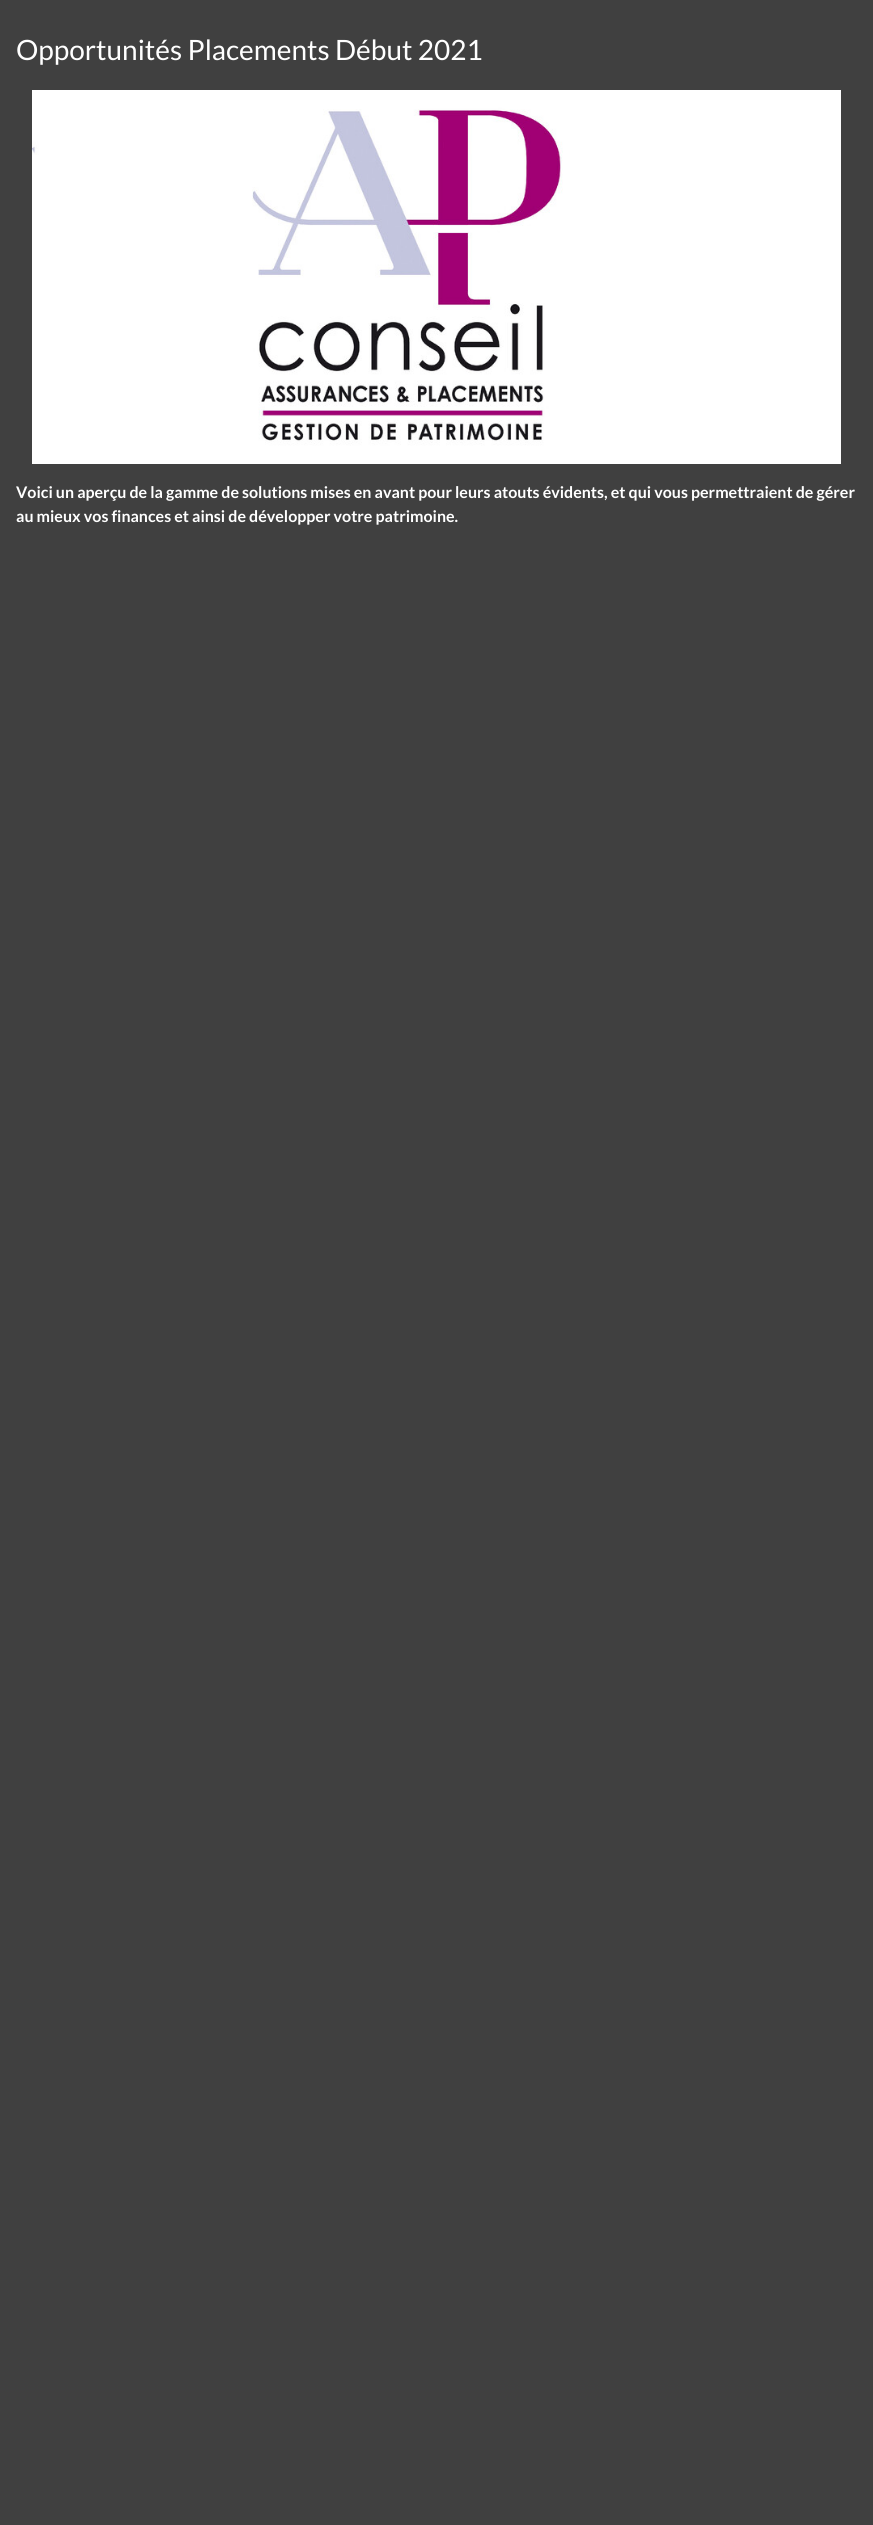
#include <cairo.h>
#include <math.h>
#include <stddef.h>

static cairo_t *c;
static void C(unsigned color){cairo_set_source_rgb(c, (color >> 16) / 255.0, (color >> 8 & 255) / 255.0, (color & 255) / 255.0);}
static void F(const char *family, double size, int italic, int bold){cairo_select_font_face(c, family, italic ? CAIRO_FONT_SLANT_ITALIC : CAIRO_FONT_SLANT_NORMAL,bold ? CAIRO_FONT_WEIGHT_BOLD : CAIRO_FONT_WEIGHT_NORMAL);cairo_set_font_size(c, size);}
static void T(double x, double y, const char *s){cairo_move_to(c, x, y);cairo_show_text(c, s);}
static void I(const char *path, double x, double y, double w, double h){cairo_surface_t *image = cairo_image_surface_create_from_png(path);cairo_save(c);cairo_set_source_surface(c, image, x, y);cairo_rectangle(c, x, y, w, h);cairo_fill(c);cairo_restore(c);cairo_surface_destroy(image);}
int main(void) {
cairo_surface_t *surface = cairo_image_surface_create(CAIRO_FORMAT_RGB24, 873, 2525);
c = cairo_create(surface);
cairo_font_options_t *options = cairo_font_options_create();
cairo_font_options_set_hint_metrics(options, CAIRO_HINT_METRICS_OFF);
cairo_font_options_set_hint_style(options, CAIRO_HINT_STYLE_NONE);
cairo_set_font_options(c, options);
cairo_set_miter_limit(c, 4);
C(0x404040);
cairo_paint(c);
F("Lato",28,0,0);
C(0xffffff);
T(16,60,"Opportunités Placements Début 2021");
I("1.png",32,90,809,374);
F("Lato",16,0,1);
T(16,498,"Voici un aperçu de la gamme de solutions mises en avant pour leurs atouts évidents, et qui vous permettraient de gérer");
T(16,522,"au mieux vos finances et ainsi de développer votre patrimoine.");
cairo_surface_write_to_png(surface, "o.png");
cairo_font_options_destroy(options);
cairo_destroy(c);
cairo_surface_destroy(surface);
return 0;
}
